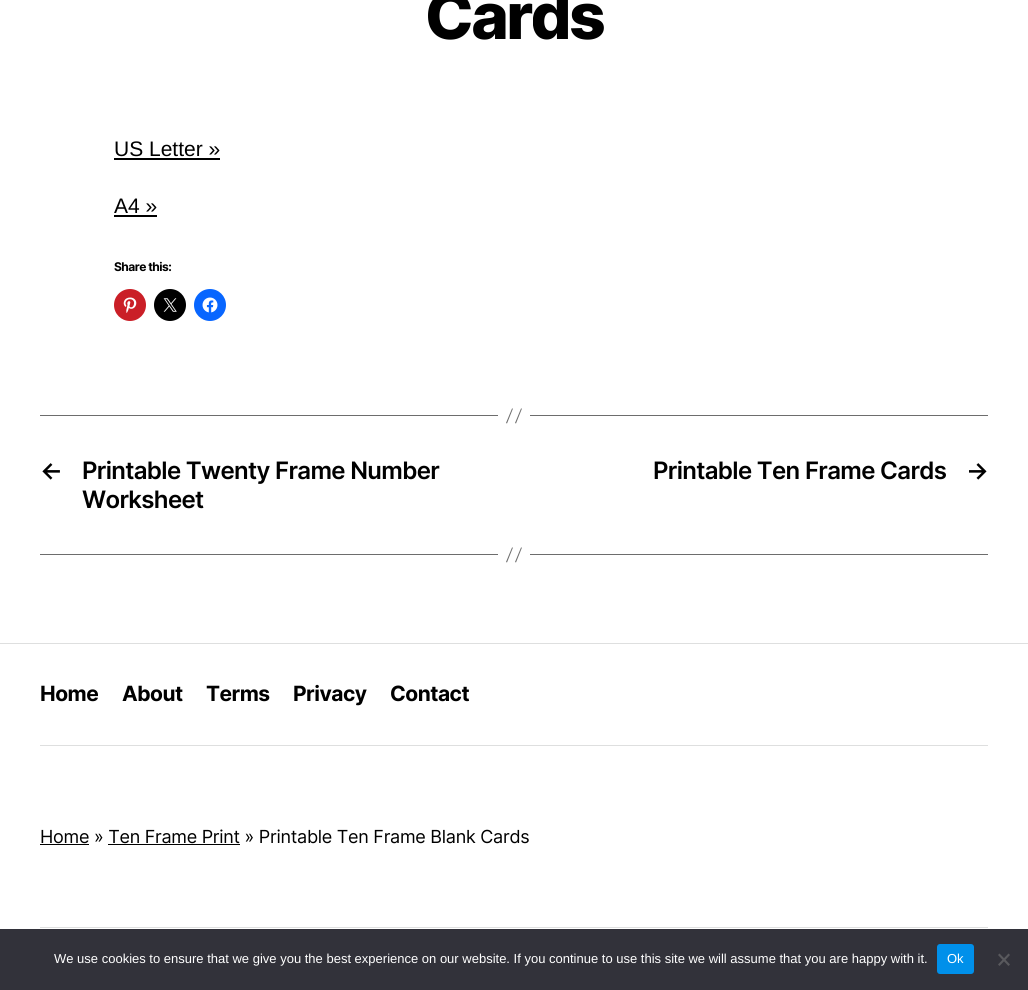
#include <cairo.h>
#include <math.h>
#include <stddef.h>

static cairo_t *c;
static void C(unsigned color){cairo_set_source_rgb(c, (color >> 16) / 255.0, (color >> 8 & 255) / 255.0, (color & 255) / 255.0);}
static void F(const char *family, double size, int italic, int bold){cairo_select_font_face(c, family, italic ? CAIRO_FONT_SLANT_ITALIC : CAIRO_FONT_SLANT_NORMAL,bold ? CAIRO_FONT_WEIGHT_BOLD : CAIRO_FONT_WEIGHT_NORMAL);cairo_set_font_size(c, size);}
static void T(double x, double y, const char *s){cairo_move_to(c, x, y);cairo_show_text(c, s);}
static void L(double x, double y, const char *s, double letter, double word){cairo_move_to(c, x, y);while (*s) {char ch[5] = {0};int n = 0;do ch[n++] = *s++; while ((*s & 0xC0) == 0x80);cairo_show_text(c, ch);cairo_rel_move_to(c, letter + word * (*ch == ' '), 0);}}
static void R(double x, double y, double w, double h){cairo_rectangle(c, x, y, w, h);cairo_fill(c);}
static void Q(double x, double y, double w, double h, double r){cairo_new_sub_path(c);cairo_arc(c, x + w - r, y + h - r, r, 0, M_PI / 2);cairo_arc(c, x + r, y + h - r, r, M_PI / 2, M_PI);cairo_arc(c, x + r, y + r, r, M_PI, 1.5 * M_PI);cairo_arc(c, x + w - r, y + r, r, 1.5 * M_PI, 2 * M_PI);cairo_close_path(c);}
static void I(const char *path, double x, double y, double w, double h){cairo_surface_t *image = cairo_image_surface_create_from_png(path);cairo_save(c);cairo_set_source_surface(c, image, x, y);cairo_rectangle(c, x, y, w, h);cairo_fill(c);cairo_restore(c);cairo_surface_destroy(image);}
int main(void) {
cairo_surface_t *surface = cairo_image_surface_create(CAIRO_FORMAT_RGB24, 1028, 990);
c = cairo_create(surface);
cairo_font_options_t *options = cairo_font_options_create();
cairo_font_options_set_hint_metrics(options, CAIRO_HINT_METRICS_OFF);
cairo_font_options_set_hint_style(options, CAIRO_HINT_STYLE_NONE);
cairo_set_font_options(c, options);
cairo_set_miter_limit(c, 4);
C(0xffffff);
cairo_paint(c);
F("Inter ExtraBold",64,0,0);
C(0x000000);
L(425,39,"Cards",-2.5,0);
F("Liberation Sans",21,0,0);
T(114,156,"US Letter »");
R(114,158,106,2);
T(114,213,"A4 »");
R(114,215,43,2);
F("Inter",12,0,1);
L(114,271,"Share this:",-.5,0);
C(0xca1f27);
cairo_new_path(c);
cairo_arc(c,130,305,16,0,2 * M_PI);
cairo_fill(c);
I("1.png",123,297,14,16);
C(0x000000);
cairo_arc(c,170,305,16,0,2 * M_PI);
cairo_fill(c);
I("2.png",163,298,14,14);
C(0x0866ff);
cairo_arc(c,210,305,16,0,2 * M_PI);
cairo_fill(c);
I("3.png",202,297,16,16);
C(0x6d6d6d);
R(530,415,458,1);
R(40,415,458,1);
cairo_new_path(c);
cairo_move_to(c,512,408.5);
cairo_line_to(c,513,408.5);
cairo_line_to(c,507,423.5);
cairo_line_to(c,506,423);
cairo_close_path(c);
cairo_move_to(c,521,408.5);
cairo_line_to(c,522,408.5);
cairo_line_to(c,516,423.5);
cairo_line_to(c,515,423);
cairo_close_path(c);
cairo_fill(c);
F("Inter SemiBold",24,0,0);
C(0x000000);
L(40,479,"←",-.65,0);
L(82,479,"Printable Twenty Frame Number",-.65,0);
L(82,508,"Worksheet",-.65,0);
L(653,479,"Printable Ten Frame Cards",-.65,0);
L(966,479,"→",-.65,0);
C(0x6d6d6d);
R(530,554,458,1);
R(40,554,458,1);
cairo_new_path(c);
cairo_move_to(c,512,547.5);
cairo_line_to(c,513,547.5);
cairo_line_to(c,507,562.5);
cairo_line_to(c,506,562);
cairo_close_path(c);
cairo_move_to(c,521,547.5);
cairo_line_to(c,522,547.5);
cairo_line_to(c,516,562.5);
cairo_line_to(c,515,562);
cairo_close_path(c);
cairo_fill(c);
C(0xdedfdf);
R(0,643,1028,1);
R(40,745,948,1);
F("Inter",21,0,1);
C(0x000000);
L(40,701,"Home",-.5,0);
L(122,701,"About",-.5,0);
L(206,701,"Terms",-.5,0);
L(293,701,"Privacy",-.5,0);
L(390,701,"Contact",-.5,0);
C(0xdedfdf);
R(40,927,948,1);
F("Inter",18,0,0);
C(0x000000);
L(40,843,"Home » Ten Frame Print » Printable Ten Frame Blank Cards",-.27,0);
R(40,844,49,1);
R(108,844,132,1);
C(0x32323a);
R(0,929,1028,61);
F("Liberation Sans",13,0,0);
C(0xffffff);
T(54,963,"We use cookies to ensure that we give you the best experience on our website. If you continue to use this site we will assume that you are happy with it.");
C(0x0090ea);
Q(937,944,37,30,3);
cairo_fill(c);
C(0xffffff);
T(947,963,"Ok");
C(0x59595d);
cairo_new_path(c);
cairo_move_to(c,1008.5,953.5);
cairo_line_to(c,1010,955);
cairo_line_to(c,999.5,966);
cairo_line_to(c,998,964.5);
cairo_close_path(c);
cairo_fill(c);
cairo_new_path(c);
cairo_move_to(c,998,955);
cairo_line_to(c,999.5,953.5);
cairo_line_to(c,1010,964.5);
cairo_line_to(c,1008.5,966);
cairo_close_path(c);
cairo_fill(c);
cairo_surface_write_to_png(surface, "o.png");
cairo_font_options_destroy(options);
cairo_destroy(c);
cairo_surface_destroy(surface);
return 0;
}
